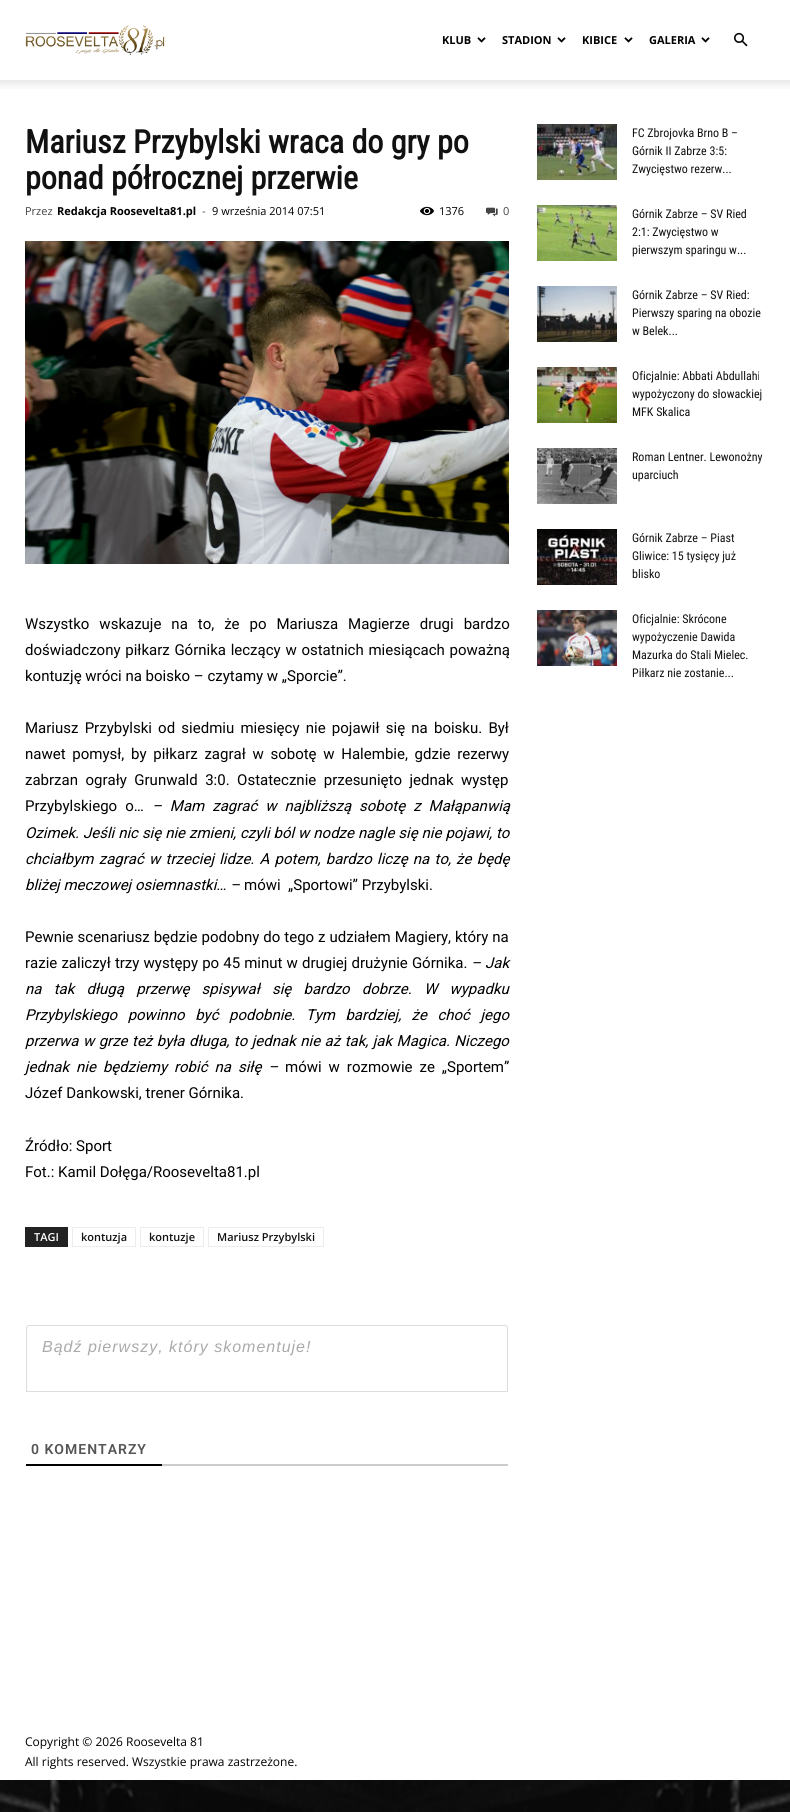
#include <cairo.h>
#include <math.h>
#include <stddef.h>

static cairo_t *c;
static void C(unsigned color){cairo_set_source_rgb(c, (color >> 16) / 255.0, (color >> 8 & 255) / 255.0, (color & 255) / 255.0);}
static void F(const char *family, double size, int italic, int bold){cairo_select_font_face(c, family, italic ? CAIRO_FONT_SLANT_ITALIC : CAIRO_FONT_SLANT_NORMAL,bold ? CAIRO_FONT_WEIGHT_BOLD : CAIRO_FONT_WEIGHT_NORMAL);cairo_set_font_size(c, size);}
static void T(double x, double y, const char *s){cairo_move_to(c, x, y);cairo_show_text(c, s);}
static void L(double x, double y, const char *s, double letter, double word){cairo_move_to(c, x, y);while (*s) {char ch[5] = {0};int n = 0;do ch[n++] = *s++; while ((*s & 0xC0) == 0x80);cairo_show_text(c, ch);cairo_rel_move_to(c, letter + word * (*ch == ' '), 0);}}
static void R(double x, double y, double w, double h){cairo_rectangle(c, x, y, w, h);cairo_fill(c);}
static void I(const char *path, double x, double y, double w, double h){cairo_surface_t *image = cairo_image_surface_create_from_png(path);cairo_save(c);cairo_set_source_surface(c, image, x, y);cairo_rectangle(c, x, y, w, h);cairo_fill(c);cairo_restore(c);cairo_surface_destroy(image);}
int main(void) {
cairo_surface_t *surface = cairo_image_surface_create(CAIRO_FORMAT_RGB24, 790, 1812);
c = cairo_create(surface);
cairo_font_options_t *options = cairo_font_options_create();
cairo_font_options_set_hint_metrics(options, CAIRO_HINT_METRICS_OFF);
cairo_font_options_set_hint_style(options, CAIRO_HINT_STYLE_NONE);
cairo_set_font_options(c, options);
cairo_set_miter_limit(c, 4);
C(0xffffff);
cairo_paint(c);
I("1.png",25,25,140,30);
F("Open Sans",11,0,1);
C(0x000000);
T(442,44,"KLUB");
I("2.png",477,37,9,6);
T(502,44,"STADION");
I("2.png",557,37,9,6);
T(582,44,"KIBICE");
I("2.png",624,37,9,6);
T(649,44,"GALERIA");
I("2.png",701,37,9,6);
I("3.png",734,32,14,15);
I("4.png",0,80,790,9);
F("Roboto Condensed",32,0,1);
C(0x111111);
T(25,153,"Mariusz Przybylski wraca do gry po");
T(25,189,"ponad półrocznej przerwie");
F("Open Sans",11,0,0);
C(0x444444);
T(25,215,"Przez");
F("Open Sans",11,0,1);
C(0x000000);
T(57,215,"Redakcja Roosevelta81.pl");
F("Open Sans",11,0,0);
C(0x444444);
T(202,215,"-");
C(0x000000);
T(212,215,"9 września 2014 07:51");
I("5.png",420,206,14,10);
T(439,215,"1376");
I("6.png",486,207,12,10);
C(0x444444);
T(503,215,"0");
I("7.png",25,241,484,323);
F("Roboto",15,0,0);
C(0x000000);
L(25,629,"Wszystko wskazuje na to, że po Mariusza Magierze drugi bardzo",0,6.25);
L(25,655,"doświadczony piłkarz Górnika leczący w ostatnich miesiącach poważną",0,1);
T(25,681,"kontuzję wróci na boisko – czytamy w „Sporcie”.");
L(25,733,"Mariusz Przybylski od siedmiu miesięcy nie pojawił się na boisku. Był",0,2.5);
L(25,759,"nawet pomysł, by piłkarz zagrał w sobotę w Halembie, gdzie rezerwy",0,3);
L(25,785,"zabrzan ograły Grunwald 3:0. Ostatecznie przesunięto jednak występ",0,3.75);
L(25,811,"Przybylskiego o…",0,4.25);
F("Roboto",15,1,0);
L(152,811,"– Mam zagrać w najbliższą sobotę z Małąpanwią",0,4.25);
L(25,838,"Ozimek. Jeśli nic się nie zmieni, czyli ból w nodze nagle się nie pojawi, to",0,.2);
L(25,864,"chciałbym zagrać w trzeciej lidze. A potem, bardzo liczę na to, że będę",0,1.5);
T(25,890,"bliżej meczowej osiemnastki… –");
F("Roboto",15,0,0);
T(244,890,"mówi  „Sportowi” Przybylski.");
L(25,942,"Pewnie scenariusz będzie podobny do tego z udziałem Magiery, który na",0,.25);
L(25,968,"razie zaliczył trzy występy po 45 minut w drugiej drużynie Górnika.",0,.4);
F("Roboto",15,1,0);
L(471,968,"– Jak",0,.4);
L(25,994,"na tak długą przerwę spisywał się bardzo dobrze. W wypadku",0,8.5);
L(25,1020,"Przybylskiego powinno być podobnie. Tym bardziej, że choć jego",0,6.75);
L(25,1046,"przerwa w grze też była długa, to jednak nie aż tak, jak Magica. Niczego",0,.75);
L(25,1072,"jednak nie będziemy robić na siłę –",0,3.25);
F("Roboto",15,0,0);
L(285,1072,"mówi w rozmowie ze „Sportem”",0,3.25);
T(25,1098,"Józef Dankowski, trener Górnika.");
T(25,1151,"Źródło: Sport");
T(25,1177,"Fot.: Kamil Dołęga/Roosevelta81.pl");
C(0x222222);
R(25,1227,43,20);
F("Open Sans SemiBold",11,0,0);
C(0xffffff);
T(34,1241,"TAGI");
cairo_rectangle(c,72.5,1227.5,63,19);
C(0xededed);
cairo_set_line_width(c,1);
cairo_stroke(c);
C(0x111111);
T(81,1241,"kontuzja");
cairo_rectangle(c,140.5,1227.5,63,19);
C(0xededed);
cairo_stroke(c);
C(0x111111);
T(149,1241,"kontuzje");
cairo_rectangle(c,208.5,1227.5,115,19);
C(0xededed);
cairo_stroke(c);
C(0x111111);
T(217,1241,"Mariusz Przybylski");
cairo_new_path(c);
cairo_move_to(c,29,1325.5);
cairo_line_to(c,505,1325.5);
cairo_curve_to(c,506.5,1325.5,507.5,1326.5,507.5,1328);
cairo_line_to(c,507.5,1391.5);
cairo_line_to(c,26.5,1391.5);
cairo_line_to(c,26.5,1328);
cairo_curve_to(c,26.5,1326.5,27.5,1325.5,29,1325.5);
cairo_close_path(c);
C(0xdddddd);
cairo_stroke(c);
F("Liberation Sans",16,1,0);
C(0xaaaaaa);
L(42,1352,"Bądź pierwszy, który skomentuje!",1,0);
C(0xcccccc);
R(162,1464,346,2);
C(0x000000);
R(26,1464,136,2);
F("Roboto SemiBold",14,0,0);
C(0x555555);
L(31,1454,"0 KOMENTARZY",1,0);
I("8.png",537,124,80,56);
F("Roboto Condensed",12,0,0);
C(0x111111);
T(632,137,"FC Zbrojovka Brno B –");
T(632,155,"Górnik II Zabrze 3:5:");
T(632,173,"Zwycięstwo rezerw...");
I("9.png",537,205,80,56);
T(632,218,"Górnik Zabrze – SV Ried");
T(632,236,"2:1: Zwycięstwo w");
T(632,254,"pierwszym sparingu w...");
I("10.png",537,286,80,56);
T(632,299,"Górnik Zabrze – SV Ried:");
T(632,317,"Pierwszy sparing na obozie");
T(632,335,"w Belek...");
I("11.png",537,367,80,56);
T(632,380,"Oficjalnie: Abbati Abdullahi");
T(632,398,"wypożyczony do słowackiej");
T(632,416,"MFK Skalica");
I("12.png",537,448,80,56);
T(632,461,"Roman Lentner. Lewonożny");
T(632,479,"uparciuch");
I("13.png",537,529,80,56);
T(632,542,"Górnik Zabrze – Piast");
T(632,560,"Gliwice: 15 tysięcy już");
T(632,578,"blisko");
I("14.png",537,610,80,56);
T(632,623,"Oficjalnie: Skrócone");
T(632,641,"wypożyczenie Dawida");
T(632,659,"Mazurka do Stali Mielec.");
T(632,677,"Piłkarz nie zostanie...");
F("Open Sans",12,0,0);
C(0x000000);
T(25,1746,"Copyright © 2026 Roosevelta 81");
T(25,1766,"All rights reserved. Wszystkie prawa zastrzeżone.");
I("15.png",0,1780,790,32);
cairo_surface_write_to_png(surface, "o.png");
cairo_font_options_destroy(options);
cairo_destroy(c);
cairo_surface_destroy(surface);
return 0;
}
